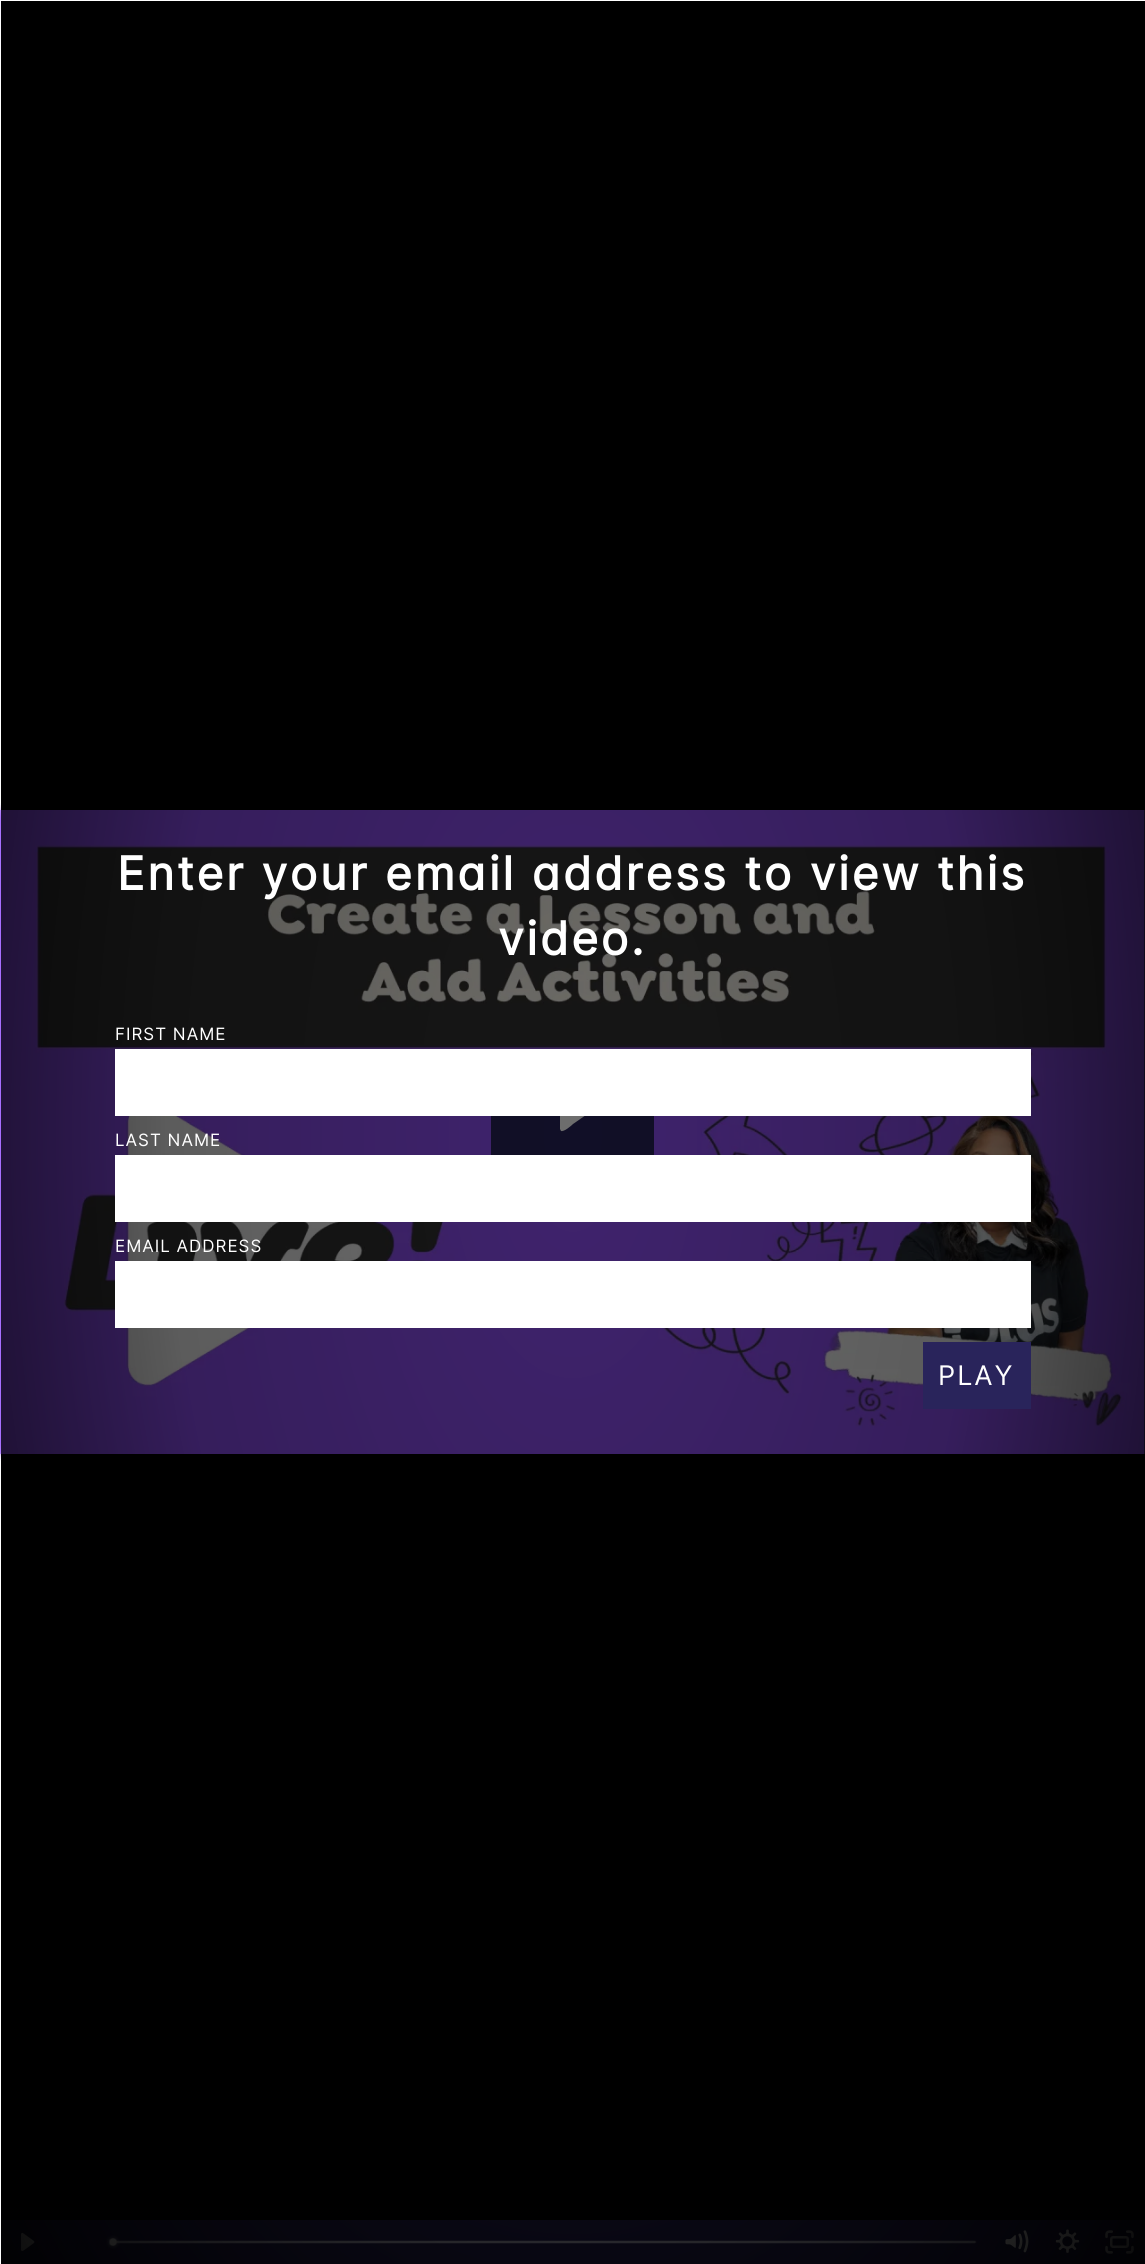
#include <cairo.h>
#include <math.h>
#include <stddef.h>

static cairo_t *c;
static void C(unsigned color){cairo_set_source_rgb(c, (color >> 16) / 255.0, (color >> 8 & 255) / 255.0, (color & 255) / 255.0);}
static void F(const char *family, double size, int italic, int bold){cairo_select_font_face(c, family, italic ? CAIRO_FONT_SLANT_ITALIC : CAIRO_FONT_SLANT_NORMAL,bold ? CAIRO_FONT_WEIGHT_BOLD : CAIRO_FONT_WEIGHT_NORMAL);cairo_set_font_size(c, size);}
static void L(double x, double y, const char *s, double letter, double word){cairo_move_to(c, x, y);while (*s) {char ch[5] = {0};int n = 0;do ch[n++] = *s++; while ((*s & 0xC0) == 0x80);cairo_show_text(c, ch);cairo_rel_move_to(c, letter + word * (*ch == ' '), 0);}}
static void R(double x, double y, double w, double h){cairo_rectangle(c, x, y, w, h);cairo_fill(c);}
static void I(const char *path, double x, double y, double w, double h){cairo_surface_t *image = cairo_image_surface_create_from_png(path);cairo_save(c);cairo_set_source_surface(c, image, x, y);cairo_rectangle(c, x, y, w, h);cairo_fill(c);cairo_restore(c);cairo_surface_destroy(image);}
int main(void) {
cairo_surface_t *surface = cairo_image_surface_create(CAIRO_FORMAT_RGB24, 1145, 2264);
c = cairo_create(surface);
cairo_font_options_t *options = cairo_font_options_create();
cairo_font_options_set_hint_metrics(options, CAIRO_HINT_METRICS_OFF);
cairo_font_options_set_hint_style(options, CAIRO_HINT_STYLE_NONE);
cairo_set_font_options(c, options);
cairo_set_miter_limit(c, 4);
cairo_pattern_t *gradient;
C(0xffffff);
cairo_paint(c);
I("1.png",0,803,1,658);
C(0x000000);
R(1,1,1144,2219);
I("3.png",0,805,1,654);
I("2.png",0,810,1145,644);
C(0x121029);
R(491,1116,163,39);
C(0x737373);
cairo_set_fill_rule(c,CAIRO_FILL_RULE_EVEN_ODD);
cairo_new_path(c);
cairo_move_to(c,564,1089);
cairo_curve_to(c,559,1086,560,1097,560,1098);
cairo_line_to(c,560,1129);
cairo_line_to(c,561,1131);
cairo_curve_to(c,564,1132,571,1126,573,1124);
cairo_line_to(c,586,1115);
cairo_curve_to(c,594,1110,594,1110,586,1105);
cairo_close_path(c);
cairo_fill(c);
C(0x100e23);
R(1,2220,1144,44);
I("4.png",21,2232,14,20);
I("5.png",106,2235,871,14);
I("6.png",1005,2230,24,23);
I("7.png",1055,2229,25,24);
I("8.png",1105,2230,29,24);
gradient = cairo_pattern_create_radial(0,0,0,0,0,1);
cairo_pattern_set_matrix(gradient, &(cairo_matrix_t){1.0 / 810, 0, 0, 1.0 / 1601, -1.0 * 573 / 810, -1.0 * 1132 / 1601});
cairo_pattern_add_color_stop_rgba(gradient,0,0,0,0,.05);
cairo_pattern_add_color_stop_rgba(gradient,.5,0,0,0,.2);
cairo_pattern_add_color_stop_rgba(gradient,1,0,0,0,.9);
cairo_set_source(c,gradient);
cairo_pattern_destroy(gradient);
R(1,810,1144,1454);
F("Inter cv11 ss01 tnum",46,0,1);
C(0xffffff);
L(117,890,"Enter your email address to view this",2.75,0);
L(498,955,"video.",2.75,0);
F("Inter cv11 ss01 tnum",17,0,0);
L(115,1040,"FIRST NAME",1,0);
R(115,1049,916,67);
L(115,1146,"LAST NAME",1,0);
R(115,1155,916,67);
L(115,1252,"EMAIL ADDRESS",1,0);
R(115,1261,916,67);
C(0x29245b);
R(923,1342,108,67);
F("Inter cv11 ss01 tnum",27,0,0);
C(0xffffff);
L(938,1385,"PLAY",2,0);
cairo_surface_write_to_png(surface, "o.png");
cairo_font_options_destroy(options);
cairo_destroy(c);
cairo_surface_destroy(surface);
return 0;
}
